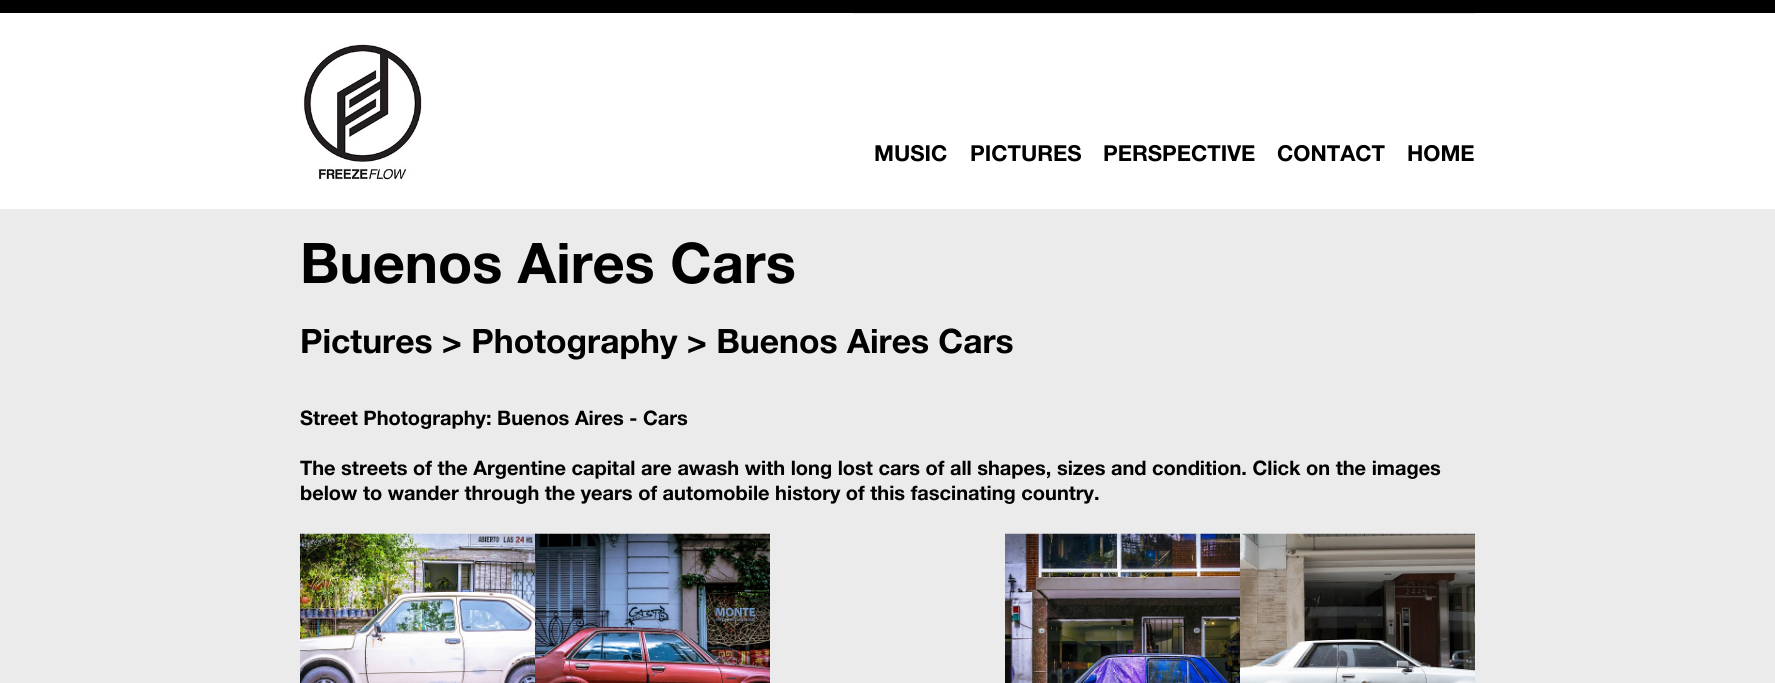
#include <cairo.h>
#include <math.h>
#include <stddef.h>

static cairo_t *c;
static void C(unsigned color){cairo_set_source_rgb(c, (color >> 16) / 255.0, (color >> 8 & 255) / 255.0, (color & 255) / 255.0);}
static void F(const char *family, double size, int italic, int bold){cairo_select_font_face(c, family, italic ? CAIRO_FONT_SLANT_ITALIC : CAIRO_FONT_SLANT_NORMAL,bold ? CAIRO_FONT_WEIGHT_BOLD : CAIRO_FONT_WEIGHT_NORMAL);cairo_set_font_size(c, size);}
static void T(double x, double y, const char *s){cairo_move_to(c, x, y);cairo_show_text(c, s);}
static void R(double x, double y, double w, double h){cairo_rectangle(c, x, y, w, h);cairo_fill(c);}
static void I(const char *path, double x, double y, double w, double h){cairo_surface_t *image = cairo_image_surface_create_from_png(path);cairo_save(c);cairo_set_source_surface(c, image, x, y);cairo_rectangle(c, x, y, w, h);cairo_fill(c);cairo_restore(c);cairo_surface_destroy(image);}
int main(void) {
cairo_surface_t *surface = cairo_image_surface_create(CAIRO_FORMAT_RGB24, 1775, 683);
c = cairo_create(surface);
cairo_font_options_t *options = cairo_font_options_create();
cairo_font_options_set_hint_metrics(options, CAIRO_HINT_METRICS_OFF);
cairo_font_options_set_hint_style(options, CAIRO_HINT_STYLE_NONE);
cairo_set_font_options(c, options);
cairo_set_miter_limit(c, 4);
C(0xebebeb);
cairo_paint(c);
C(0x000000);
R(0,0,1775,13);
C(0xffffff);
R(0,13,1775,196);
I("1.png",303,44,119,136);
C(0xebebeb);
R(853,13,622,1);
F("Helvetica Neue",22,0,1);
C(0x000000);
T(874,161,"MUSIC");
T(970,161,"PICTURES");
T(1103,161,"PERSPECTIVE");
T(1277,161,"CONTACT");
T(1407,161,"HOME");
F("Helvetica Neue",56,0,1);
T(300,283,"Buenos Aires Cars");
F("Helvetica Neue",33.6,0,1);
T(300,353,"Pictures > Photography > Buenos Aires Cars");
F("Helvetica Neue",20,0,1);
T(300,425,"Street Photography: Buenos Aires - Cars");
T(300,475,"The streets of the Argentine capital are awash with long lost cars of all shapes, sizes and condition. Click on the images");
T(300,500,"below to wander through the years of automobile history of this fascinating country.");
I("2.png",300,533,235,150);
I("3.png",535,533,235,150);
I("4.png",1005,533,235,150);
I("5.png",1240,533,235,150);
cairo_surface_write_to_png(surface, "o.png");
cairo_font_options_destroy(options);
cairo_destroy(c);
cairo_surface_destroy(surface);
return 0;
}
